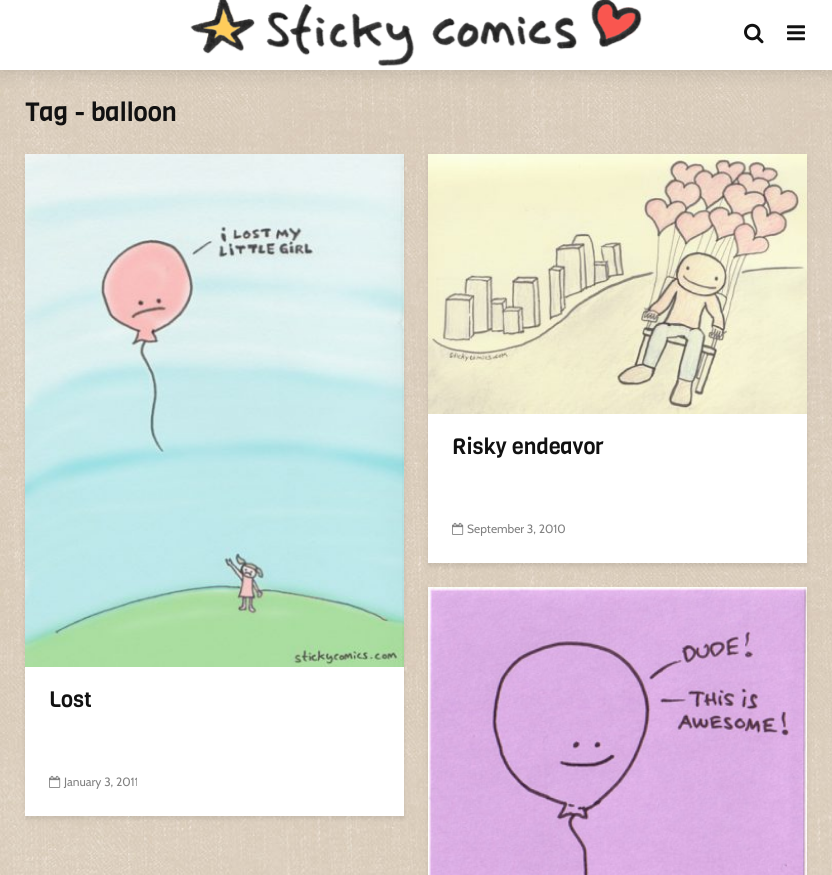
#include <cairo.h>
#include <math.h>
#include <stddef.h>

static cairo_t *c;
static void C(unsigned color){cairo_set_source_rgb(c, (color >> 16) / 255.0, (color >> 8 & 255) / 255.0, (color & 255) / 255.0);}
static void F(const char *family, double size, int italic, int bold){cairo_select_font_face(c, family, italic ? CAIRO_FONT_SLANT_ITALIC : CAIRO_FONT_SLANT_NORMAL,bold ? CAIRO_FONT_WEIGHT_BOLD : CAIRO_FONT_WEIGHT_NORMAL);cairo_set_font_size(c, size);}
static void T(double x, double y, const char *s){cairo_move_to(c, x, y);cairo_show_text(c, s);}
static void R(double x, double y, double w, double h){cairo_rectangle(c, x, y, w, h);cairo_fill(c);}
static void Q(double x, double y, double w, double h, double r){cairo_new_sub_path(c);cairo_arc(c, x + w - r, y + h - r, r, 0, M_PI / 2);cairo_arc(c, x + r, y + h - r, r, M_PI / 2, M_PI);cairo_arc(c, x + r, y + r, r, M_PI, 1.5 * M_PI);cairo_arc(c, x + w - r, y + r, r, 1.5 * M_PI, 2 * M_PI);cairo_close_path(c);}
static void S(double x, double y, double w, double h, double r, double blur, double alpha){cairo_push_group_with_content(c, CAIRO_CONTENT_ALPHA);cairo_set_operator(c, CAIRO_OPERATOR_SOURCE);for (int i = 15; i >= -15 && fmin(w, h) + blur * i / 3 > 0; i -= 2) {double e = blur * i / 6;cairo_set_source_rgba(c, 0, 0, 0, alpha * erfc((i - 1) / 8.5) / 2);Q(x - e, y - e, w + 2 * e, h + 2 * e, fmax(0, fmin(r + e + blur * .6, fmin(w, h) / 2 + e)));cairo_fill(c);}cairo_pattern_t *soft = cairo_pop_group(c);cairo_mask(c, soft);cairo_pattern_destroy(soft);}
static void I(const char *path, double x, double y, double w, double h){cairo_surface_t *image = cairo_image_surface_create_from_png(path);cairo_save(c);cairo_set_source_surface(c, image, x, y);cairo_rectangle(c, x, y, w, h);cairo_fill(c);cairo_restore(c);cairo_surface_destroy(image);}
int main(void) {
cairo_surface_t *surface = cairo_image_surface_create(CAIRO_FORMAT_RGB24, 832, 875);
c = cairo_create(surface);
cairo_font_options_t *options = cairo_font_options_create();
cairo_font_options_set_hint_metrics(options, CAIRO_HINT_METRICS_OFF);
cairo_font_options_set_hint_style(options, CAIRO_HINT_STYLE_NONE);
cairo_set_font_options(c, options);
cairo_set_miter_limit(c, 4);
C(0xffffff);
cairo_paint(c);
I("1.png",0,70,832,805);
C(0x000000);
S(0,0,832,70,0,10,.15);
C(0xffffff);
R(0,0,832,70);
I("2.png",190,0,452,67);
I("3.png",744,23,20,21);
I("4.png",787,25,18,16);
F("Viga",26,0,0);
C(0x111111);
T(25,121,"Tag - balloon");
C(0x000101);
S(428,157,379,409,0,2.5,.1);
C(0xffffff);
R(428,414,379,149);
I("5.png",428,154,379,260);
F("Viga",22,0,0);
C(0x111111);
T(452,454,"Risky endeavor");
I("6.png",452,522,12,13);
F("Cabin",12,0,0);
C(0x818181);
T(467,533,"September 3, 2010");
C(0x000101);
S(25,157,379,662,0,2.5,.1);
C(0xffffff);
R(25,667,379,149);
I("7.png",25,154,379,513);
F("Viga",22,0,0);
C(0x111111);
T(49,707,"Lost");
I("6.png",49,775,12,13);
F("Cabin",12,0,0);
C(0x818181);
T(64,786,"January 3, 2011");
C(0x000101);
S(428,590,379,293,0,2.5,.1);
I("8.png",428,587,379,288);
cairo_surface_write_to_png(surface, "o.png");
cairo_font_options_destroy(options);
cairo_destroy(c);
cairo_surface_destroy(surface);
return 0;
}
